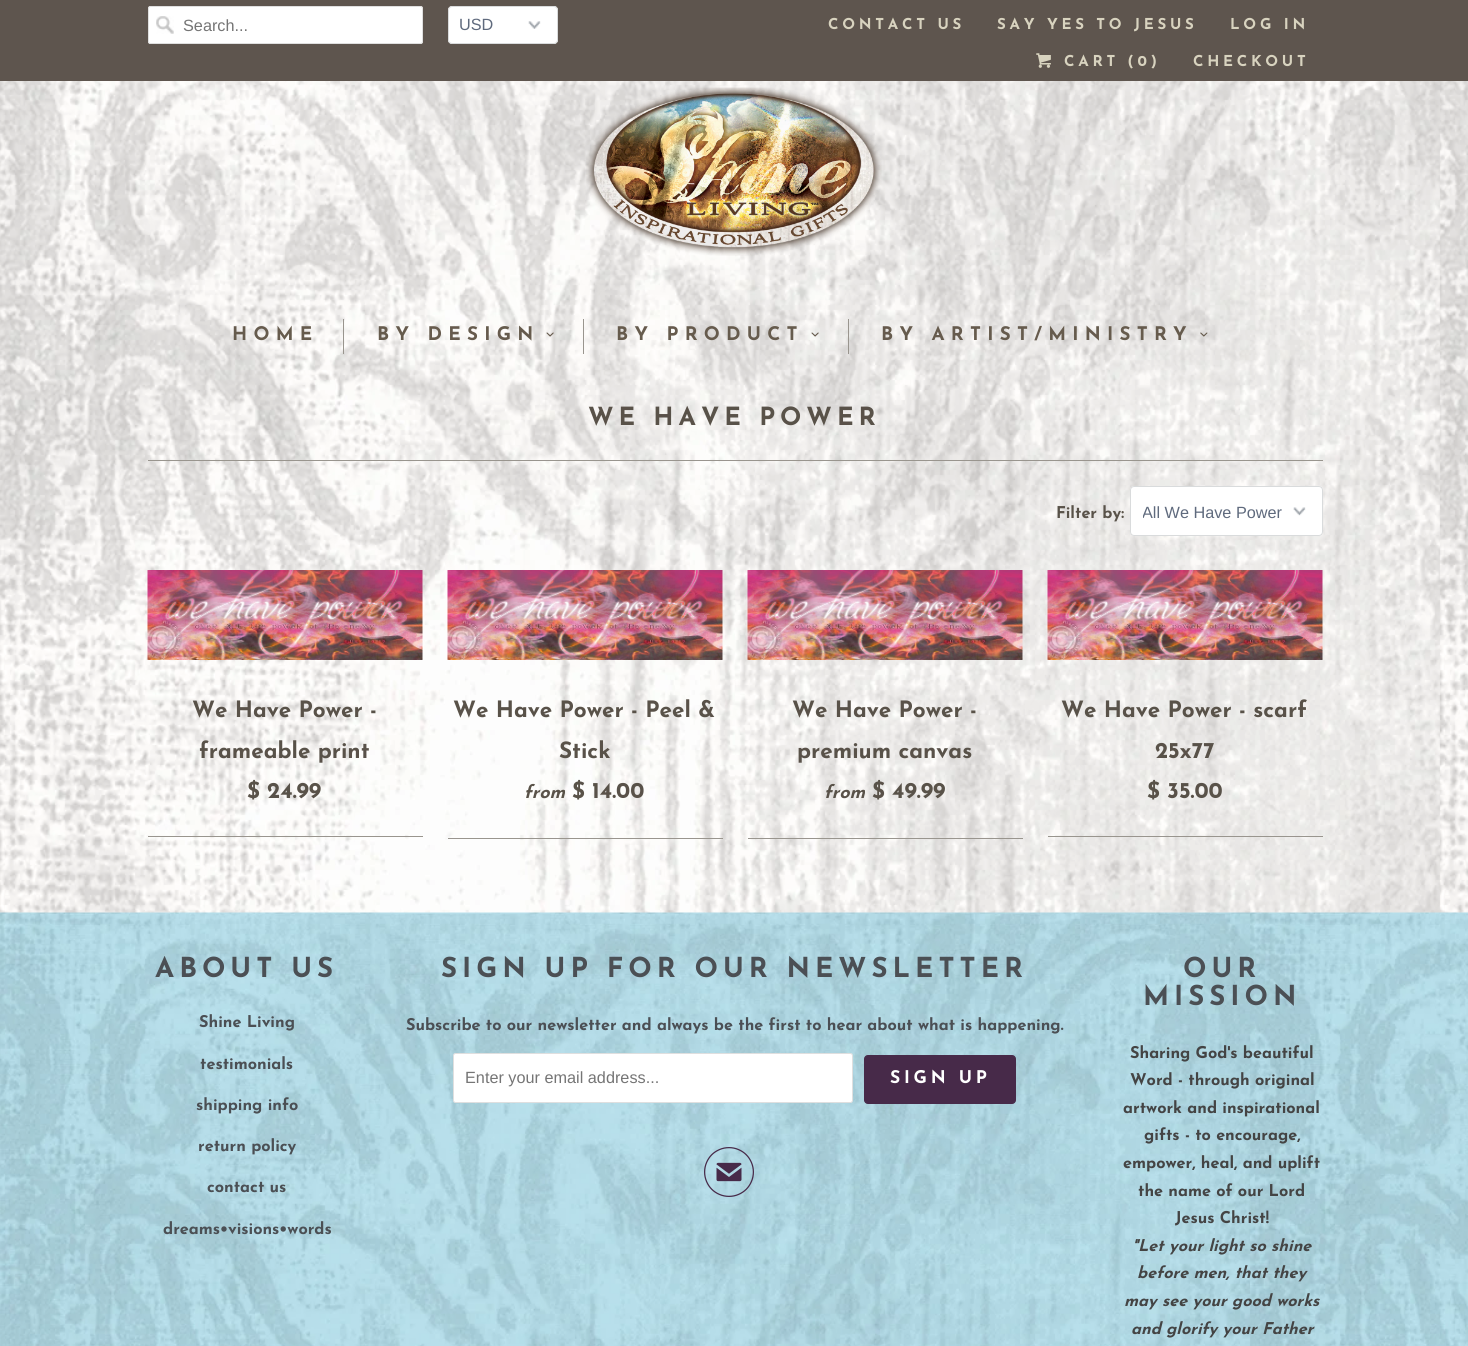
#include <cairo.h>
#include <math.h>
#include <stddef.h>

static cairo_t *c;
static void C(unsigned color){cairo_set_source_rgb(c, (color >> 16) / 255.0, (color >> 8 & 255) / 255.0, (color & 255) / 255.0);}
static void F(const char *family, double size, int italic, int bold){cairo_select_font_face(c, family, italic ? CAIRO_FONT_SLANT_ITALIC : CAIRO_FONT_SLANT_NORMAL,bold ? CAIRO_FONT_WEIGHT_BOLD : CAIRO_FONT_WEIGHT_NORMAL);cairo_set_font_size(c, size);}
static void T(double x, double y, const char *s){cairo_move_to(c, x, y);cairo_show_text(c, s);}
static void L(double x, double y, const char *s, double letter, double word){cairo_move_to(c, x, y);while (*s) {char ch[5] = {0};int n = 0;do ch[n++] = *s++; while ((*s & 0xC0) == 0x80);cairo_show_text(c, ch);cairo_rel_move_to(c, letter + word * (*ch == ' '), 0);}}
static void R(double x, double y, double w, double h){cairo_rectangle(c, x, y, w, h);cairo_fill(c);}
static void Q(double x, double y, double w, double h, double r){cairo_new_sub_path(c);cairo_arc(c, x + w - r, y + h - r, r, 0, M_PI / 2);cairo_arc(c, x + r, y + h - r, r, M_PI / 2, M_PI);cairo_arc(c, x + r, y + r, r, M_PI, 1.5 * M_PI);cairo_arc(c, x + w - r, y + r, r, 1.5 * M_PI, 2 * M_PI);cairo_close_path(c);}
static void I(const char *path, double x, double y, double w, double h){cairo_surface_t *image = cairo_image_surface_create_from_png(path);cairo_save(c);cairo_set_source_surface(c, image, x, y);cairo_rectangle(c, x, y, w, h);cairo_fill(c);cairo_restore(c);cairo_surface_destroy(image);}
int main(void) {
cairo_surface_t *surface = cairo_image_surface_create(CAIRO_FORMAT_RGB24, 1468, 1346);
c = cairo_create(surface);
cairo_font_options_t *options = cairo_font_options_create();
cairo_font_options_set_hint_metrics(options, CAIRO_HINT_METRICS_OFF);
cairo_font_options_set_hint_style(options, CAIRO_HINT_STYLE_NONE);
cairo_set_font_options(c, options);
cairo_set_miter_limit(c, 4);
C(0xffffff);
cairo_paint(c);
I("1.png",0,81,1468,832);
C(0x5e554e);
R(0,0,1468,81);
C(0xffffff);
Q(148,6,275,38,2.5);
cairo_fill(c);
I("2.png",156,16,18,18);
Q(148.5,6.5,274,37,2);
C(0xdfdfdf);
cairo_set_line_width(c,1);
cairo_stroke(c);
F("Liberation Sans",16.25,0,0);
C(0x757575);
T(183,31,"Search...");
C(0xffffff);
Q(448,6,110,38,4);
cairo_fill(c);
I("3.png",528,21,13,8);
Q(448.5,6.5,109,37,3.5);
C(0xd9dbdc);
cairo_stroke(c);
C(0x5f6a7d);
T(459,30,"USD");
F("Josefin Sans",15,0,1);
C(0xd8d3bf);
L(828,29,"CONTACT US",3.75,0);
L(997,29,"SAY YES TO JESUS",3.75,0);
L(1230,29,"LOG IN",3.75,0);
I("4.png",1036,53,15,15);
L(1064,66,"CART (0)",3.75,0);
L(1193,66,"CHECKOUT",3.75,0);
I("5.png",586,87,296,169);
C(0x99958e);
R(343,319,1,35);
F("Josefin Sans",18.75,0,1);
C(0x665b4d);
L(232,340,"HOME",6.25,0);
C(0x99958e);
R(583,319,1,35);
C(0x665b4d);
L(377,340,"BY DESIGN",6.25,0);
I("6.png",546,332,8,5);
C(0x99958e);
R(848,319,1,35);
C(0x665b4d);
L(616,340,"BY PRODUCT",6.25,0);
I("7.png",811,332,8,5);
L(881,340,"BY ARTIST/MINISTRY",6.25,0);
I("8.png",1200,332,8,5);
C(0x99958e);
R(148,460,1175,1);
F("Josefin Sans",25,0,1);
C(0x595249);
L(588,425,"WE HAVE POWER",5,0);
F("Josefin Sans",16.25,0,1);
T(1056,518,"Filter by:");
C(0xffffff);
Q(1130,486,193,50,4);
cairo_fill(c);
I("9.png",1293,507,13,9);
Q(1130.5,486.5,192,49,3.5);
C(0xd9dbdc);
cairo_stroke(c);
cairo_save(c);
cairo_rectangle(c,1143,504,167,19);
cairo_clip(c);
F("Liberation Sans",16.25,0,0);
C(0x5f6a7d);
T(1142,518,"All We Have Power");
cairo_restore(c);
C(0x99958e);
R(148,836,275,1);
I("10.png",147,570,276,90);
F("Josefin Sans",22.5,0,1);
C(0x595249);
T(192,717,"We Have Power -");
T(199,758,"frameable print");
T(247,798,"$ 24.99");
C(0x99958e);
R(448,838,275,1);
I("11.png",447,570,276,90);
C(0x595249);
T(453,717,"We Have Power - Peel &");
T(559,758,"Stick");
F("Josefin Sans",18,1,1);
T(524,798,"from");
F("Josefin Sans",22.5,0,1);
T(572,798,"$ 14.00");
C(0x99958e);
R(748,838,275,1);
I("12.png",747,570,276,90);
C(0x595249);
T(792,717,"We Have Power -");
T(797,758,"premium canvas");
F("Josefin Sans",18,1,1);
T(824,798,"from");
F("Josefin Sans",22.5,0,1);
T(872,798,"$ 49.99");
C(0x99958e);
R(1048,836,275,1);
I("13.png",1047,570,276,90);
C(0x595249);
T(1061,717,"We Have Power - scarf");
T(1155,758,"25x77");
T(1147,798,"$ 35.00");
I("14.png",0,912,1468,434);
F("Josefin Sans",27.5,0,1);
C(0x4b4f54);
L(155,977,"ABOUT US",5,0);
F("Josefin Sans",16.25,0,1);
T(199,1027,"Shine Living");
T(200,1069,"testimonials");
T(196,1110,"shipping info");
T(198,1151,"return policy");
T(207,1192,"contact us");
T(163,1234,"dreams•visions•words");
F("Josefin Sans",27.5,0,1);
L(441,977,"SIGN UP FOR OUR NEWSLETTER",5,0);
F("Josefin Sans",16.25,0,1);
T(406,1030,"Subscribe to our newsletter and always be the first to hear about what is happening.");
C(0xffffff);
Q(453.5,1053.5,399,49,2);
cairo_fill_preserve(c);
C(0xdfdfdf);
cairo_stroke(c);
F("Liberation Sans",16.25,0,0);
C(0x757575);
T(465,1083,"Enter your email address...");
C(0x472a49);
Q(864.5,1055.5,151,48,3.5);
cairo_fill_preserve(c);
cairo_stroke(c);
F("Josefin Sans",17.5,0,1);
C(0xffffff);
L(890,1083,"SIGN UP",3.75,0);
F("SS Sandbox",50,0,0);
C(0x472a49);
T(704,1197,"✉");
F("Josefin Sans",27.5,0,1);
C(0x4b4f54);
L(1183,977,"OUR",5,0);
L(1143,1005,"MISSION",5,0);
F("Josefin Sans",16.25,0,1);
C(0x444444);
T(1130,1058,"Sharing God's beautiful");
T(1130,1085,"Word - through original");
T(1123,1113,"artwork and inspirational");
T(1144,1140,"gifts - to encourage,");
T(1123,1168,"empower, heal, and uplift");
T(1138,1196,"the name of our Lord");
T(1175,1223,"Jesus Christ!");
F("Josefin Sans",16.25,1,1);
T(1132,1251,"\"Let your light so shine");
T(1137,1278,"before men, that they");
T(1124,1306,"may see your good works");
T(1131,1334,"and glorify your Father");
cairo_surface_write_to_png(surface, "o.png");
cairo_font_options_destroy(options);
cairo_destroy(c);
cairo_surface_destroy(surface);
return 0;
}
